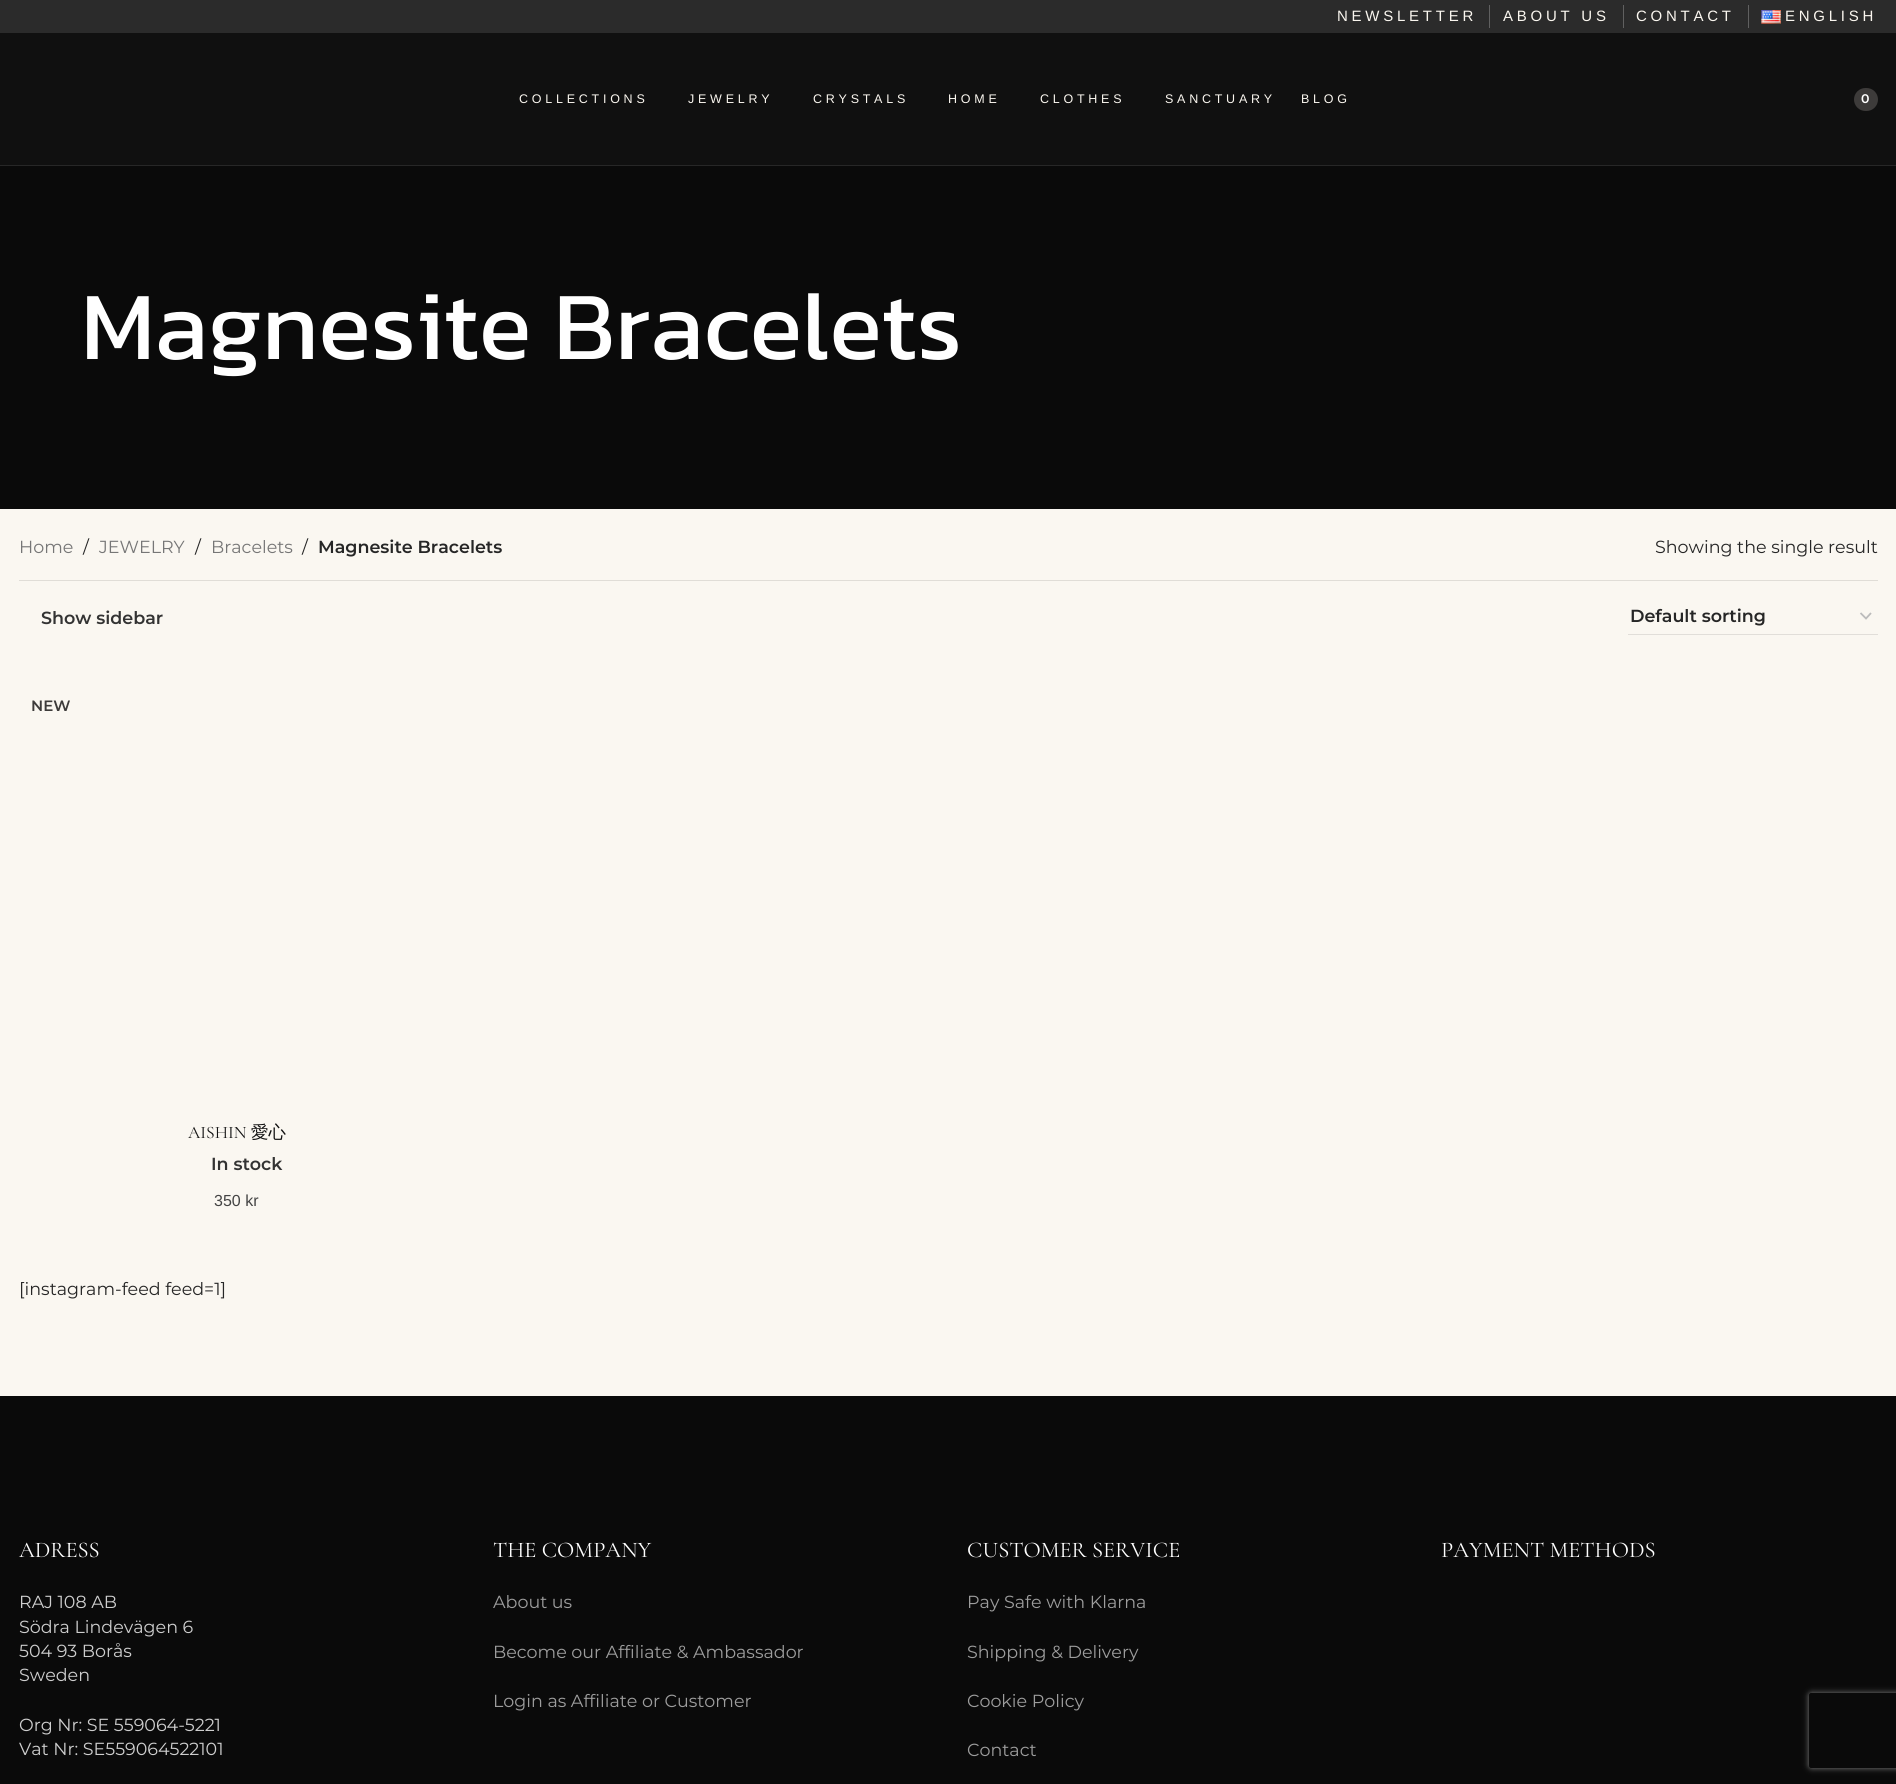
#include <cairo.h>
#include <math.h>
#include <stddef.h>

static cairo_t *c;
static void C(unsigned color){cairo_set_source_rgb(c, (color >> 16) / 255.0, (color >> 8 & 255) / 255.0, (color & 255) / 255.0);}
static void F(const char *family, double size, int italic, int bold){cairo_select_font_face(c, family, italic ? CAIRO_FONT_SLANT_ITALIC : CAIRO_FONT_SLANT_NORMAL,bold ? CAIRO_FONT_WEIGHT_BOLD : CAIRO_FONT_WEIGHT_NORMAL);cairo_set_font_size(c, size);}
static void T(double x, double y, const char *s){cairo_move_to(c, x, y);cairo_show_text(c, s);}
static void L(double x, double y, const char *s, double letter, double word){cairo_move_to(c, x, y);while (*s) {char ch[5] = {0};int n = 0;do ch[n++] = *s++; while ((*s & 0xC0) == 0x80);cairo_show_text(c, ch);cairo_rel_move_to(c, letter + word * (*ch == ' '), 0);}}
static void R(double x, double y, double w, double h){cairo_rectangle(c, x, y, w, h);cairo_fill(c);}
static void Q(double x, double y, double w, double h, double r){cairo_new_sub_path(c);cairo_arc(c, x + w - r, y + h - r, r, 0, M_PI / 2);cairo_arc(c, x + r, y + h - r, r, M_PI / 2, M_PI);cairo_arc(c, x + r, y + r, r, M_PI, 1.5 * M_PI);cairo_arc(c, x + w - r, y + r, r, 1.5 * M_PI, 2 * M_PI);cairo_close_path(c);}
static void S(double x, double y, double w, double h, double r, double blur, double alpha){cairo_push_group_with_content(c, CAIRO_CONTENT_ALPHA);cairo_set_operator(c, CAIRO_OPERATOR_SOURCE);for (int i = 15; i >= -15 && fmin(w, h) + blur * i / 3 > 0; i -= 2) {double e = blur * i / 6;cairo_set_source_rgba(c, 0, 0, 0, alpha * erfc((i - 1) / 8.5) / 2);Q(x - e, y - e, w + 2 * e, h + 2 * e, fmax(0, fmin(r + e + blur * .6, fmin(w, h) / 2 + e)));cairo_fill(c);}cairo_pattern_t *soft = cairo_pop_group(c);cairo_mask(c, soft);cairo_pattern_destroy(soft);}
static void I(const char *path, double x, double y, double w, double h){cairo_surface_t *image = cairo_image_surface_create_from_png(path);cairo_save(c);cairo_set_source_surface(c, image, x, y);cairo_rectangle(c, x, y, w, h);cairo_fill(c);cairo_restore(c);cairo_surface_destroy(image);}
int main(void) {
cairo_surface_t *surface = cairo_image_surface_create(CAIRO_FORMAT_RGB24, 1896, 1784);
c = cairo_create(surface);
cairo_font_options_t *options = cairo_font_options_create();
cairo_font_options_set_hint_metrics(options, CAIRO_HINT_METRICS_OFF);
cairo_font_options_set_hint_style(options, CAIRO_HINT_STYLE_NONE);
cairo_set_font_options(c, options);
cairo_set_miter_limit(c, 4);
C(0xfaf7f1);
cairo_paint(c);
C(0x2b2b2b);
R(0,0,1896,33);
F("Liberation Sans",15,0,0);
C(0xfaf6ef);
L(1337,21,"NEWSLETTER",3.75,0);
C(0x606060);
R(1489,5,1,23);
C(0xfaf6ef);
L(1503,21,"ABOUT US",3.75,0);
C(0x606060);
R(1623,5,1,23);
C(0xfaf6ef);
L(1636,21,"CONTACT",3.75,0);
C(0x606060);
R(1748,5,1,23);
I("1.png",1761,10,20,14);
C(0xfaf6ef);
L(1785,21,"ENGLISH",3.75,0);
C(0x101010);
R(0,33,1896,132);
C(0x272727);
R(0,165,1896,1);
F("Liberation Sans",12.5,0,0);
C(0xfaf6ef);
L(519,103,"COLLECTIONS",3.75,0);
L(688,103,"JEWELRY",3.75,0);
L(813,103,"CRYSTALS",3.75,0);
L(948,103,"HOME",3.75,0);
L(1040,103,"CLOTHES",3.75,0);
L(1165,103,"SANCTUARY",3.75,0);
L(1301,103,"BLOG",3.75,0);
C(0x3d3b3a);
Q(1854,88,24,23,11.5);
cairo_fill(c);
F("Montserrat SemiBold",12.5,0,0);
C(0xffffff);
T(1861,103,"0");
C(0x0a0a0a);
R(0,166,1896,343);
F("Kanit",97.5,0,0);
C(0xffffff);
T(81,359,"Magnesite Bracelets");
C(0xe0ddd7);
R(19,580,1859,1);
F("Montserrat",17.5,0,0);
C(0x767676);
T(19,553,"Home");
C(0x262626);
T(83,553,"/");
C(0x767676);
T(99,553,"JEWELRY");
C(0x262626);
T(195,553,"/");
C(0x767676);
T(211,553,"Bracelets");
C(0x262626);
T(302,553,"/");
F("Montserrat SemiBold",17.5,0,0);
T(318,553,"Magnesite Bracelets");
F("Montserrat",17.5,0,0);
T(1655,553,"Showing the single result");
F("Montserrat SemiBold",17.5,0,0);
C(0x333333);
T(41,624,"Show sidebar");
cairo_new_path(c);
cairo_move_to(c,1860.5,613);
cairo_line_to(c,1866,618.5);
cairo_line_to(c,1871,613);
C(0xbbbbbb);
cairo_set_line_width(c,1.8);
cairo_stroke(c);
C(0xe1ded9);
R(1628,634,250,1);
C(0x262626);
T(1630,622,"Default sorting");
F("Montserrat SemiBold",15,0,0);
C(0x3d3b3a);
T(31,711,"NEW");
F("Cormorant Garamond",17.5,0,0);
C(0x111111);
T(188,1138,"AISHIN");
F("WenQuanYi Zen Hei Medium",17.5,0,0);
T(251,1138,"愛心");
F("Montserrat SemiBold",17.5,0,0);
C(0x333333);
T(211,1170,"In stock");
F("Liberation Sans",16,0,0);
C(0x444444);
T(214,1206,"350 kr");
F("Montserrat",17.5,0,0);
C(0x262626);
T(19,1295,"[instagram-feed feed=1]");
C(0x0a0a0a);
R(0,1396,1896,388);
F("Cormorant Garamond",22.5,0,0);
C(0xffffff);
T(19,1557,"ADRESS");
F("Montserrat",17.5,0,0);
C(0xcecece);
T(19,1608,"RAJ 108 AB");
T(19,1633,"Södra Lindevägen 6");
T(19,1657,"504 93 Borås");
T(19,1681,"Sweden");
T(19,1731,"Org Nr: SE 559064-5221");
T(19,1755,"Vat Nr: SE559064522101");
F("Cormorant Garamond",22.5,0,0);
C(0xffffff);
T(493,1557,"THE COMPANY");
F("Montserrat",17.5,0,0);
C(0x9d9d9d);
T(493,1608,"About us");
T(493,1658,"Become our Affiliate & Ambassador");
T(493,1707,"Login as Affiliate or Customer");
F("Cormorant Garamond",22.5,0,0);
C(0xffffff);
T(967,1557,"CUSTOMER SERVICE");
F("Montserrat",17.5,0,0);
C(0x9d9d9d);
T(967,1608,"Pay Safe with Klarna");
T(967,1658,"Shipping & Delivery");
T(967,1707,"Cookie Policy");
T(967,1756,"Contact");
F("Cormorant Garamond",22.5,0,0);
C(0xffffff);
T(1441,1557,"PAYMENT METHODS");
cairo_save(c);
cairo_set_fill_rule(c,CAIRO_FILL_RULE_EVEN_ODD);
cairo_new_path(c);
cairo_move_to(c,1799,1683);
cairo_line_to(c,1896,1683);
cairo_line_to(c,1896,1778);
cairo_line_to(c,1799,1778);
cairo_close_path(c);
cairo_move_to(c,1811.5,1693);
cairo_line_to(c,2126.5,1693);
cairo_curve_to(c,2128,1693,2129,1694,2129,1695.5);
cairo_line_to(c,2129,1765.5);
cairo_curve_to(c,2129,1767,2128,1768,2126.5,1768);
cairo_line_to(c,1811.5,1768);
cairo_curve_to(c,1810,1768,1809,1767,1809,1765.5);
cairo_line_to(c,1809,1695.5);
cairo_curve_to(c,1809,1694,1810,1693,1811.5,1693);
cairo_close_path(c);
cairo_clip(c);
C(0x808080);
S(1809,1693,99,75,2.5,3,1);
cairo_restore(c);
cairo_surface_write_to_png(surface, "o.png");
cairo_font_options_destroy(options);
cairo_destroy(c);
cairo_surface_destroy(surface);
return 0;
}
